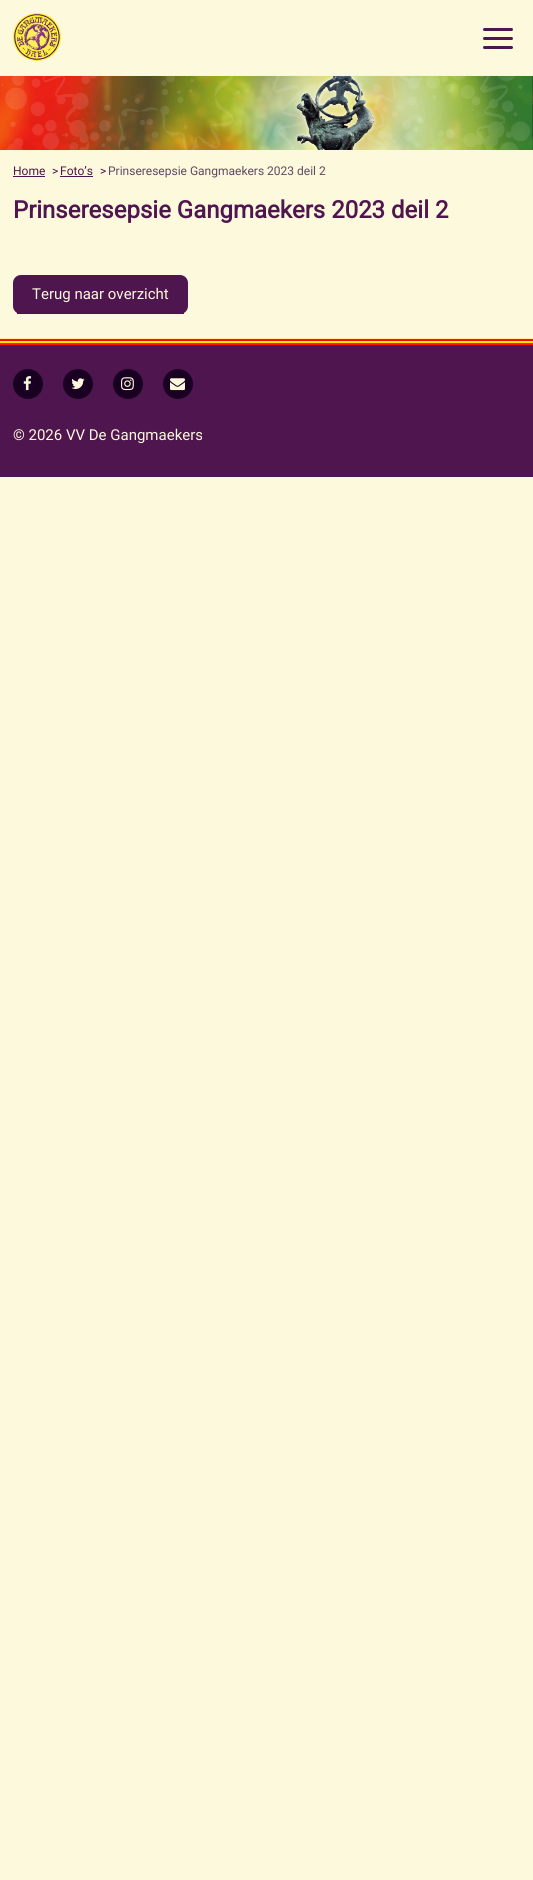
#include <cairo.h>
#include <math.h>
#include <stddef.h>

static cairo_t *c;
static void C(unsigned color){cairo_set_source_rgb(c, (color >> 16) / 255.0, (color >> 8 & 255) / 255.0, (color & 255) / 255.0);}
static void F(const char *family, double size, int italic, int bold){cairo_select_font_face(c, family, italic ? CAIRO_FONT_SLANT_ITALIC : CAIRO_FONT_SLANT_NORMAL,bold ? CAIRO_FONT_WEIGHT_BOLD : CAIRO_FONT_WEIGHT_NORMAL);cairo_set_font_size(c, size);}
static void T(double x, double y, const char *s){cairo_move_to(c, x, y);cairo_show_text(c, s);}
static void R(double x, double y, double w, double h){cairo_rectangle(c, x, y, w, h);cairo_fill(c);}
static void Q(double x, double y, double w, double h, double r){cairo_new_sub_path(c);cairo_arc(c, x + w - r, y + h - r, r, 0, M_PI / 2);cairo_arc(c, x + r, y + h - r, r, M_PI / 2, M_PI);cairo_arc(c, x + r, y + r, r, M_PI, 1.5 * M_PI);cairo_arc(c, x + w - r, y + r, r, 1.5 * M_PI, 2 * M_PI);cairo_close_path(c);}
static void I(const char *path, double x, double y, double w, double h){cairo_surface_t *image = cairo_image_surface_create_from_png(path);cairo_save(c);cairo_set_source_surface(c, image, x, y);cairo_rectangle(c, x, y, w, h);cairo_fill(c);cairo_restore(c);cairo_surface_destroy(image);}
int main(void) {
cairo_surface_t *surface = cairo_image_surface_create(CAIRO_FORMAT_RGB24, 533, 1880);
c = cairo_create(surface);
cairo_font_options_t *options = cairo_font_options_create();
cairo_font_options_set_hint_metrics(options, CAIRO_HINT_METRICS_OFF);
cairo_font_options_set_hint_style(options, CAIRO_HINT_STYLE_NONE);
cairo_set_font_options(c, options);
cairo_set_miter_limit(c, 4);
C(0xfcf9dc);
cairo_paint(c);
C(0xf2f5f6);
R(0,75,533,1);
I("1.png",13,13,48,48);
C(0x4f154f);
Q(483,28,30,3,1.5);
cairo_fill(c);
Q(483,37,30,3,1.5);
cairo_fill(c);
Q(483,46,30,3,1.5);
cairo_fill(c);
I("2.png",0,76,533,74);
F("Roboto",12,0,0);
T(13,175,"Home");
R(13,176,32,1);
T(52,175,">");
T(60,175,"Foto’s");
R(60,176,33,1);
T(100,175,">");
C(0x614861);
T(108,175,"Prinseresepsie Gangmaekers 2023 deil 2");
F("Roboto",24,0,1);
C(0x4f154f);
T(13,218,"Prinseresepsie Gangmaekers 2023 deil 2");
Q(13,275,175,39,8);
cairo_fill(c);
R(17,312,167,2);
F("Roboto",15,0,0);
C(0xfcf9dc);
T(32,299,"Terug naar overzicht");
C(0xfeeb93);
R(0,338,533,1);
C(0x4f154f);
R(0,345,533,132);
I("3.png",0,339,533,6);
C(0x190022);
cairo_arc(c,28,384,15,0,2 * M_PI);
cairo_fill(c);
I("4.png",23,376,9,15);
cairo_arc(c,78,384,15,0,2 * M_PI);
cairo_fill(c);
I("5.png",71,378,14,11);
cairo_arc(c,128,384,15,0,2 * M_PI);
cairo_fill(c);
I("6.png",121,377,13,14);
cairo_arc(c,178,384,15,0,2 * M_PI);
cairo_fill(c);
I("7.png",170,378,15,13);
C(0xfcf9dc);
T(13,440,"© 2026 VV De Gangmaekers");
cairo_surface_write_to_png(surface, "o.png");
cairo_font_options_destroy(options);
cairo_destroy(c);
cairo_surface_destroy(surface);
return 0;
}
